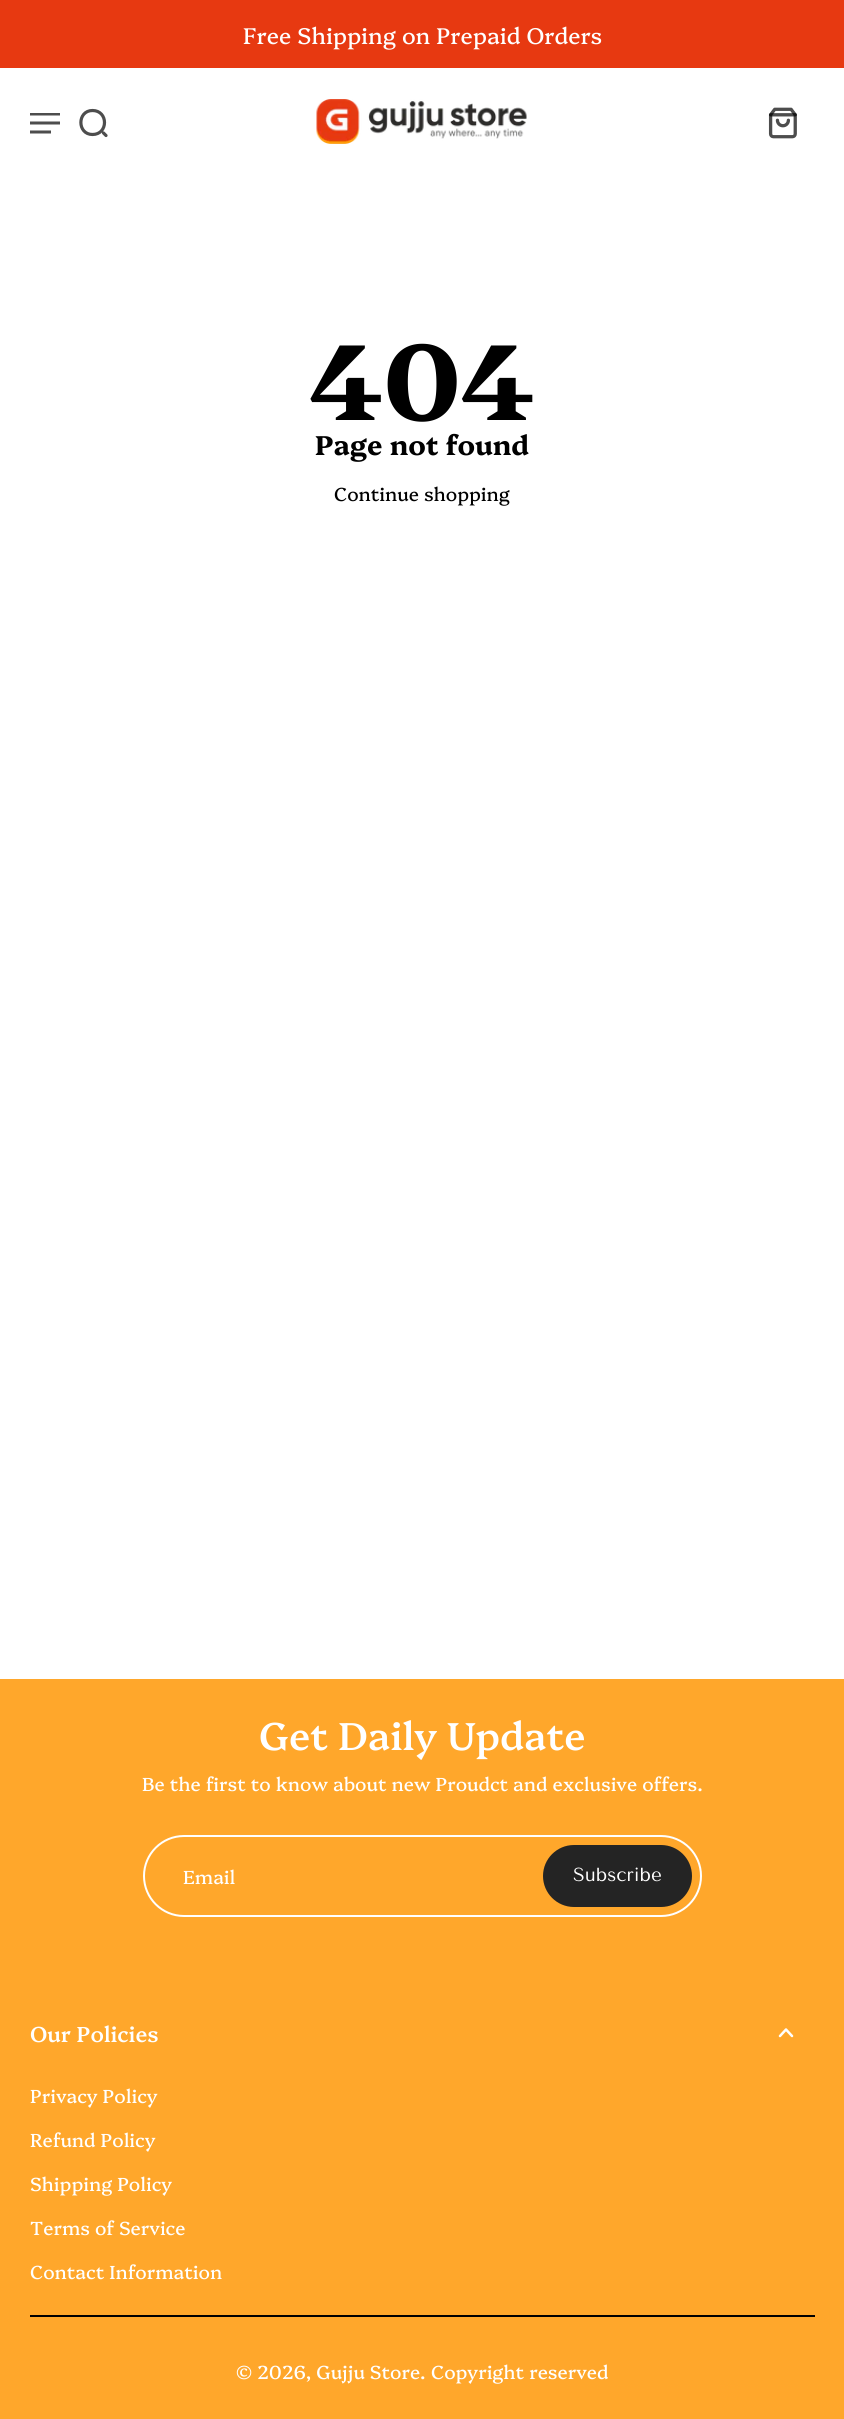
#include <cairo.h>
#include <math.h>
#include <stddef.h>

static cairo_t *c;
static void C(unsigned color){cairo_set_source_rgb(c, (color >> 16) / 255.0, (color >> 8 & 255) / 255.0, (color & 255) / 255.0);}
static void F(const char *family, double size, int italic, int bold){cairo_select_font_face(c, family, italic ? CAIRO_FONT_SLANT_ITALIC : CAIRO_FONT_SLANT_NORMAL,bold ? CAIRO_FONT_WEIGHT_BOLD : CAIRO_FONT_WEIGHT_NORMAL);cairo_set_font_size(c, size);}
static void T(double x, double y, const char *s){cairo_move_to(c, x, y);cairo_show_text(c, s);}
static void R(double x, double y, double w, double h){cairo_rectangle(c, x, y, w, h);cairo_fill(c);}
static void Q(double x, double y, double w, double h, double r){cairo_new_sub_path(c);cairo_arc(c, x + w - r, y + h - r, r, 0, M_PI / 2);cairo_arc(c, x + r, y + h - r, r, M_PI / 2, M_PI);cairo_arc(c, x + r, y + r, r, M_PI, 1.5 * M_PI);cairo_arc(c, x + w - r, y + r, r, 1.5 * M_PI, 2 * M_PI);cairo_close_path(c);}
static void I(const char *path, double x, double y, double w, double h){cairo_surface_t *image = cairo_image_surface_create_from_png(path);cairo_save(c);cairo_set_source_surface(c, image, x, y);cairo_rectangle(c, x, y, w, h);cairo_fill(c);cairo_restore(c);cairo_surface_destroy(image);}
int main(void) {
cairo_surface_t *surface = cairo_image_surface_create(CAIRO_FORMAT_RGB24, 844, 2419);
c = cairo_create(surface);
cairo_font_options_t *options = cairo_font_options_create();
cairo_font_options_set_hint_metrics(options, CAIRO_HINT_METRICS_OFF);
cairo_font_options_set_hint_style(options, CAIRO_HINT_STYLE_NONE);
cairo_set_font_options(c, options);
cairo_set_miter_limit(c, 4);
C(0xffffff);
cairo_paint(c);
C(0xe73911);
R(0,0,844,68);
F("Platypi",22.7,0,0);
C(0xffffff);
T(243,44,"Free Shipping on Prepaid Orders");
I("1.png",316,99,211,45);
I("2.png",30,113,30,21);
cairo_new_path(c);
cairo_move_to(c,92.5,134.5);
cairo_curve_to(c,108.5,134.5,108.5,110.5,92.5,110.5);
cairo_curve_to(c,77,110.5,77,134.5,92.5,134.5);
cairo_close_path(c);
cairo_move_to(c,106,135.5);
cairo_line_to(c,103.5,133);
C(0x4d4d4d);
cairo_set_line_width(c,3.2);
cairo_set_line_cap(c,CAIRO_LINE_CAP_ROUND);
cairo_set_line_join(c,CAIRO_LINE_JOIN_ROUND);
cairo_stroke(c);
I("3.png",768,107,29,32);
F("Platypi",108,0,1);
C(0x000000);
T(309,420,"404");
F("Platypi",27.25,0,1);
T(315,455,"Page not found");
F("Platypi",18.9,0,0);
T(334,501,"Continue shopping");
C(0xffa72b);
R(0,1679,844,740);
F("Platypi Medium",38.9,0,0);
C(0xffffff);
T(259,1750,"Get Daily Update");
F("Platypi",18.9,0,0);
T(142,1791,"Be the first to know about new Proudct and exclusive offers.");
Q(144,1836,557,80,40);
cairo_set_line_width(c,2);
cairo_set_line_cap(c,CAIRO_LINE_CAP_BUTT);
cairo_set_line_join(c,CAIRO_LINE_JOIN_MITER);
cairo_stroke(c);
T(183,1884,"Email");
C(0x242424);
Q(543,1845,149,62,31);
cairo_fill(c);
F("Tenor Sans",18.9,0,0);
C(0xffffff);
T(573,1881,"Subscribe");
C(0x000000);
R(30,2315,785,2);
F("Platypi Medium",21.75,0,0);
C(0xffffff);
T(30,2042,"Our Policies");
cairo_new_path(c);
cairo_move_to(c,792,2036);
cairo_line_to(c,786,2029.5);
cairo_line_to(c,780,2036);
cairo_set_line_width(c,2.5);
cairo_set_line_cap(c,CAIRO_LINE_CAP_ROUND);
cairo_set_line_join(c,CAIRO_LINE_JOIN_ROUND);
cairo_stroke(c);
F("Platypi",18.9,0,0);
T(30,2103,"Privacy Policy");
T(30,2147,"Refund Policy");
T(30,2191,"Shipping Policy");
T(30,2235,"Terms of Service");
T(30,2279,"Contact Information");
T(236,2379,"© 2026, Gujju Store");
T(420,2379,".");
T(431,2379,"Copyright reserved");
cairo_surface_write_to_png(surface, "o.png");
cairo_font_options_destroy(options);
cairo_destroy(c);
cairo_surface_destroy(surface);
return 0;
}
